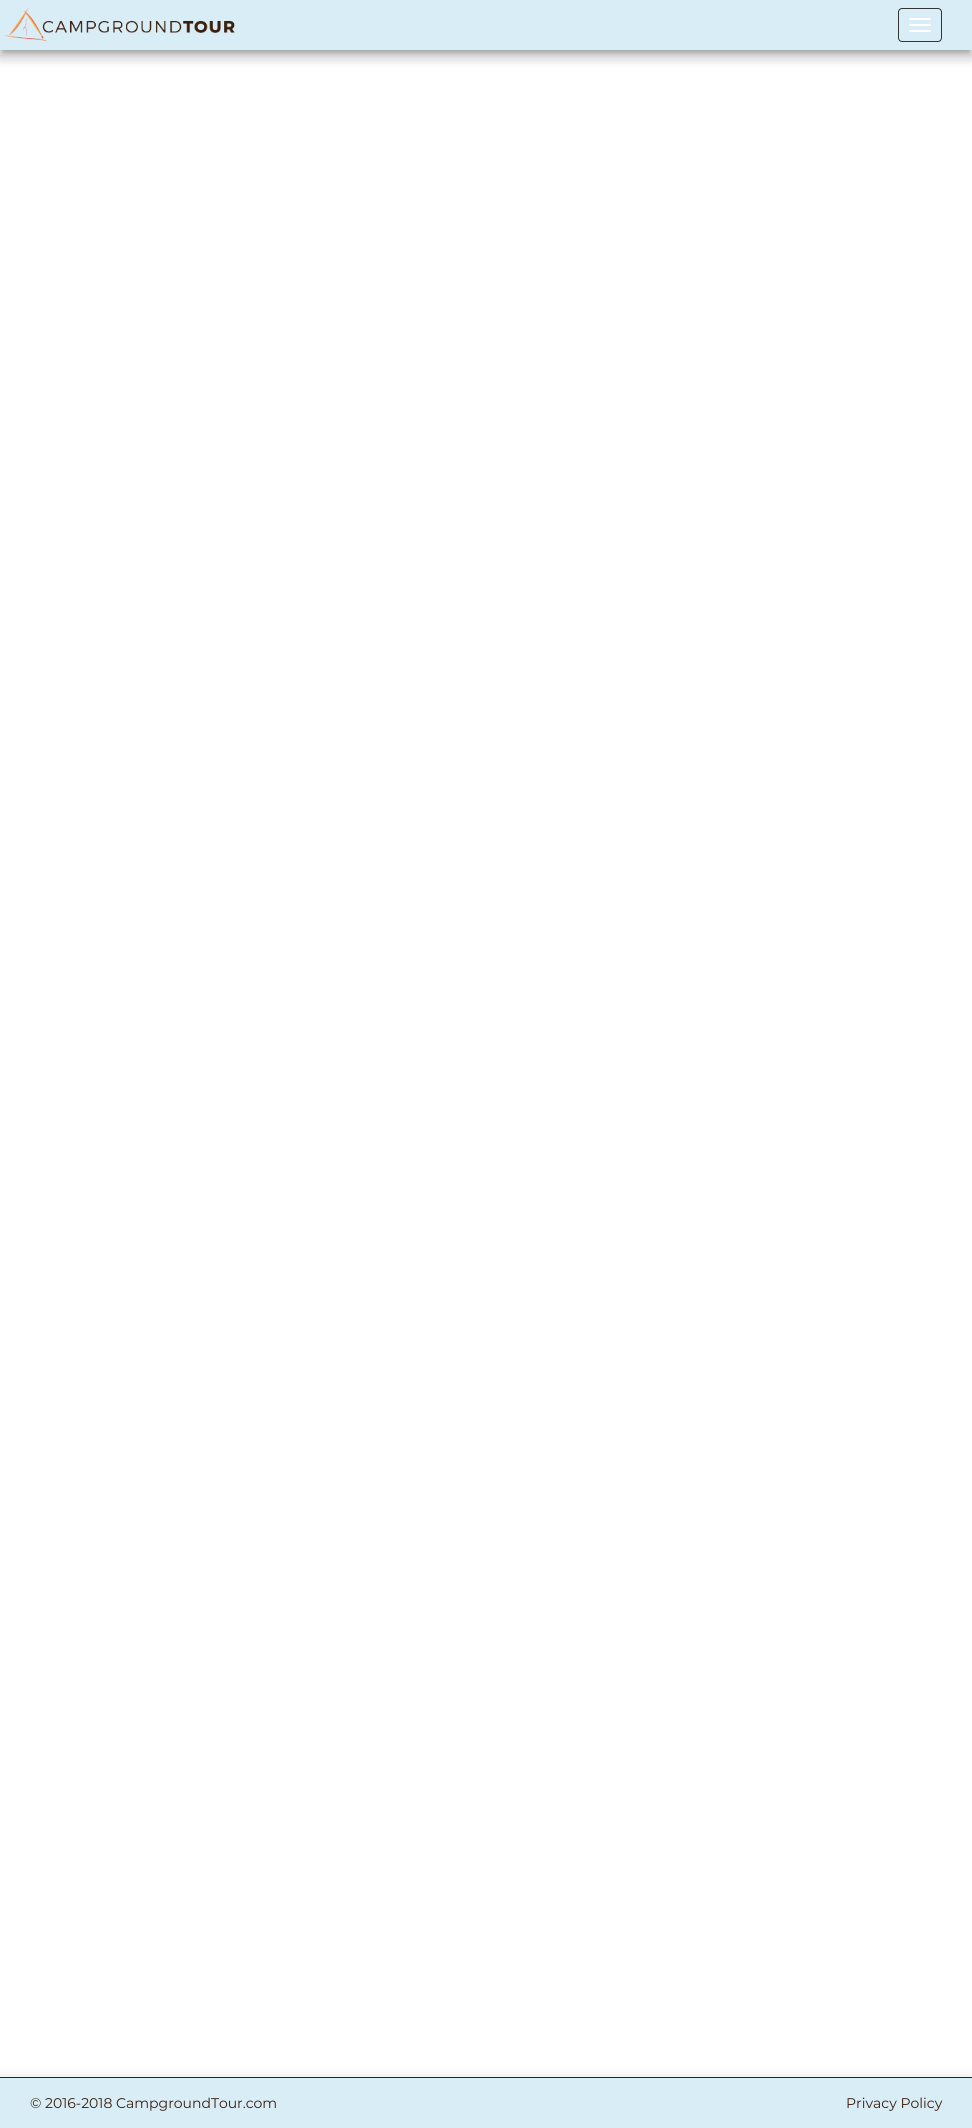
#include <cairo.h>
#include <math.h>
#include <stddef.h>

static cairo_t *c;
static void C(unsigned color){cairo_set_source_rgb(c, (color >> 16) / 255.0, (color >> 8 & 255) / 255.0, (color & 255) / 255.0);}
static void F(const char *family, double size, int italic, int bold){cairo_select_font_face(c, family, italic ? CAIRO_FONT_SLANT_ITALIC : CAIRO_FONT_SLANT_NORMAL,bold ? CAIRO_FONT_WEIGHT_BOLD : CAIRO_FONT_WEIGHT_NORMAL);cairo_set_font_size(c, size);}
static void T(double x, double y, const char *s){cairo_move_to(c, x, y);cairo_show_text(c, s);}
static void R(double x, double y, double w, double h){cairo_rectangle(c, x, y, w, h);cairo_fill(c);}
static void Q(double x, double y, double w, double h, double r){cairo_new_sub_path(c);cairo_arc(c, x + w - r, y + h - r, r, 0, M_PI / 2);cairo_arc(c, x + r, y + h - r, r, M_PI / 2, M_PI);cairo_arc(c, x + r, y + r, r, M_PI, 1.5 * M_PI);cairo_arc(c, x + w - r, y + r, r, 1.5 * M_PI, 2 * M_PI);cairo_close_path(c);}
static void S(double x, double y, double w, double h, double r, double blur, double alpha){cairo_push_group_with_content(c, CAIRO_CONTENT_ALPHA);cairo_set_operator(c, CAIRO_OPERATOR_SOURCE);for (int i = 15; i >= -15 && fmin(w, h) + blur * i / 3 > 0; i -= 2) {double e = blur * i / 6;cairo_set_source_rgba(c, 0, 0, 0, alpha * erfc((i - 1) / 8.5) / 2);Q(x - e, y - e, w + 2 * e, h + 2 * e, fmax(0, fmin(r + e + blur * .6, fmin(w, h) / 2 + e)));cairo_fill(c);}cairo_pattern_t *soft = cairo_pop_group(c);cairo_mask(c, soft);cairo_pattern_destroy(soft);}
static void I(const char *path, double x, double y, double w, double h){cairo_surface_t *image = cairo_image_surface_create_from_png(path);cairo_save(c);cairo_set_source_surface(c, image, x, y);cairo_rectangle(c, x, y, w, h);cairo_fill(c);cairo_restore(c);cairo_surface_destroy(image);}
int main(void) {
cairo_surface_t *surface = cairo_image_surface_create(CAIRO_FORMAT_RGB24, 972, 2128);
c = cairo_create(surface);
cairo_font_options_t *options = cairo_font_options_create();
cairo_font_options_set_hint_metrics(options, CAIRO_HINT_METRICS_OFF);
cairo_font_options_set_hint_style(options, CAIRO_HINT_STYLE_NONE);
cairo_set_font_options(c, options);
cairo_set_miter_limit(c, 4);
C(0xffffff);
cairo_paint(c);
C(0x000000);
S(-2,1,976,54,0,7,.12);
S(-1,7,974,52,0,5,.14);
S(3,8,966,44,0,2.5,.2);
C(0xd9edf7);
R(0,0,972,50);
I("1.png",5,8,230,34);
Q(898.5,8.5,43,33,3.5);
C(0x333333);
cairo_set_line_width(c,1);
cairo_stroke(c);
C(0xffffff);
Q(909,18,22,2,1);
cairo_fill(c);
Q(909,24,22,2,1);
cairo_fill(c);
Q(909,30,22,2,1);
cairo_fill(c);
C(0x000000);
S(-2,2078,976,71,0,7,.12);
C(0xd9edf7);
R(0,2078,972,50);
C(0x3c1e0d);
R(0,2077,972,1);
F("Montserrat Thin",14,0,0);
T(30,2108,"© 2016-2018 CampgroundTour.com");
T(846,2108,"Privacy Policy");
cairo_surface_write_to_png(surface, "o.png");
cairo_font_options_destroy(options);
cairo_destroy(c);
cairo_surface_destroy(surface);
return 0;
}
